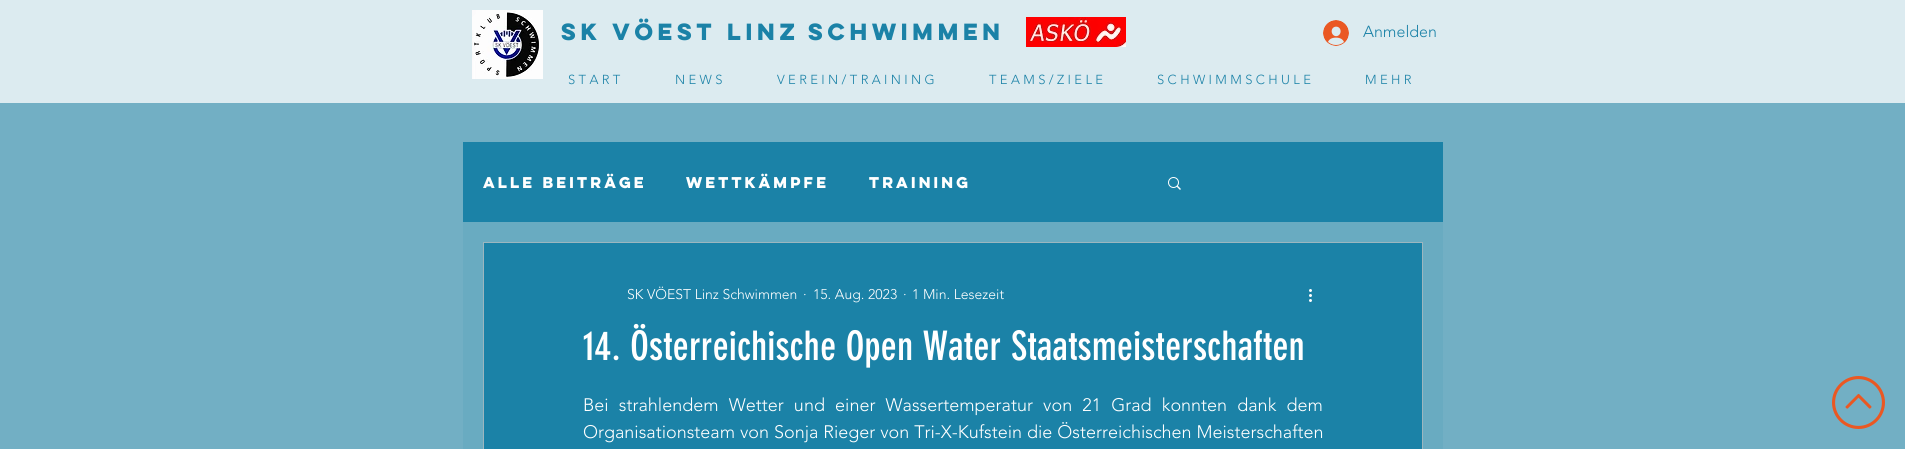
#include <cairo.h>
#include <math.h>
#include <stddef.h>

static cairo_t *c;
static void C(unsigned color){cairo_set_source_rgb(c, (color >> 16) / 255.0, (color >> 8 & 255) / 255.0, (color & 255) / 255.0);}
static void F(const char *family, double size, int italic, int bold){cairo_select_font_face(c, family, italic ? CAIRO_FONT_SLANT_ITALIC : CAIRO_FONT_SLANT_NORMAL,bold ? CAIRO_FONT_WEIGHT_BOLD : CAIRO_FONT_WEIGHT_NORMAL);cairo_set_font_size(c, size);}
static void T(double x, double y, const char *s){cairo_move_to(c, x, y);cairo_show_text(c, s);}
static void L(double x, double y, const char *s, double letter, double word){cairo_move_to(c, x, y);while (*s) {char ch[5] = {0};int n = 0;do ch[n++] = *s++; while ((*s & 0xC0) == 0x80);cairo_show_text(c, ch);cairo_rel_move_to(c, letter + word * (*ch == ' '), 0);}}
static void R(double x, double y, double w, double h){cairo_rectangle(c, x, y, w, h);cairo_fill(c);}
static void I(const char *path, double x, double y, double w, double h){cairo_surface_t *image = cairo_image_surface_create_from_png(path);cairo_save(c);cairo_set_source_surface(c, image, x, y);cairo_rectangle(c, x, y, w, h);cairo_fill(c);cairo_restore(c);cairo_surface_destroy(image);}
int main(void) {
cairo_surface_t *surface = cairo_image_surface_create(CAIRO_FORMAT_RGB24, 1905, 449);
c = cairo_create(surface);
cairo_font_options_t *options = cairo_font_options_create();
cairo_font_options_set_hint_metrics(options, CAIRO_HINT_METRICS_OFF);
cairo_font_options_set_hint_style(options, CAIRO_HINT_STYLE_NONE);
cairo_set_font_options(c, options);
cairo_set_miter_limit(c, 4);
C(0x72afc4);
cairo_paint(c);
C(0xdcebf0);
R(0,0,1905,103);
I("1.png",472,10,71,69);
F("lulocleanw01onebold",21,0,1);
C(0x1b82a7);
T(561,40,"SK VÖEST LInz");
T(808,40,"Schwimmen");
I("2.png",1026,17,100,30);
I("3.png",1323,20,26,26);
F("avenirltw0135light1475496 Light",16,0,0);
T(1363,37,"Anmelden");
F("avenirltw0135light1475496 Light",13,0,0);
T(568,84,"S T A R T");
T(675,84,"N E W S");
T(777,84,"V E R E I N / T R A I N I N G");
T(989,84,"T E A M S / Z I E L E");
T(1157,84,"S C H W I M M S C H U L E");
T(1365,84,"M E H R");
C(0x69abc1);
R(463,222,980,227);
C(0x1b82a7);
R(463,142,980,80);
F("lulocleanw01onebold",14,0,1);
C(0xffffff);
T(483,188,"Alle Beiträge");
T(686,188,"Wettkämpfe");
T(869,188,"Training");
I("4.png",1168,177,13,13);
C(0x1b82a7);
cairo_rectangle(c,483.5,242.5,939,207);
cairo_fill_preserve(c);
C(0x9cb6bf);
cairo_set_line_width(c,1);
cairo_stroke(c);
F("avenirltw0135light1475496 Light",14,0,0);
C(0xffffff);
T(627,299,"SK VÖEST Linz Schwimmen");
T(803,299,"·");
T(813,299,"15. Aug. 2023");
T(903,299,"·");
T(912,299,"1 Min. Lesezeit");
I("5.png",1309,289,3,13);
F("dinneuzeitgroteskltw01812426",40,0,0);
T(583,360,"14. Österreichische Open Water Staatsmeisterschaften");
F("avenirltw0135light1475496 Light",18,0,0);
L(583,411,"Bei strahlendem Wetter und einer Wassertemperatur von 21 Grad konnten dank dem",0,5.5);
L(583,438,"Organisationsteam von Sonja Rieger von Tri-X-Kufstein die Österreichischen Meisterschaften",0,.25);
I("6.png",1832,376,53,53);
cairo_surface_write_to_png(surface, "o.png");
cairo_font_options_destroy(options);
cairo_destroy(c);
cairo_surface_destroy(surface);
return 0;
}
